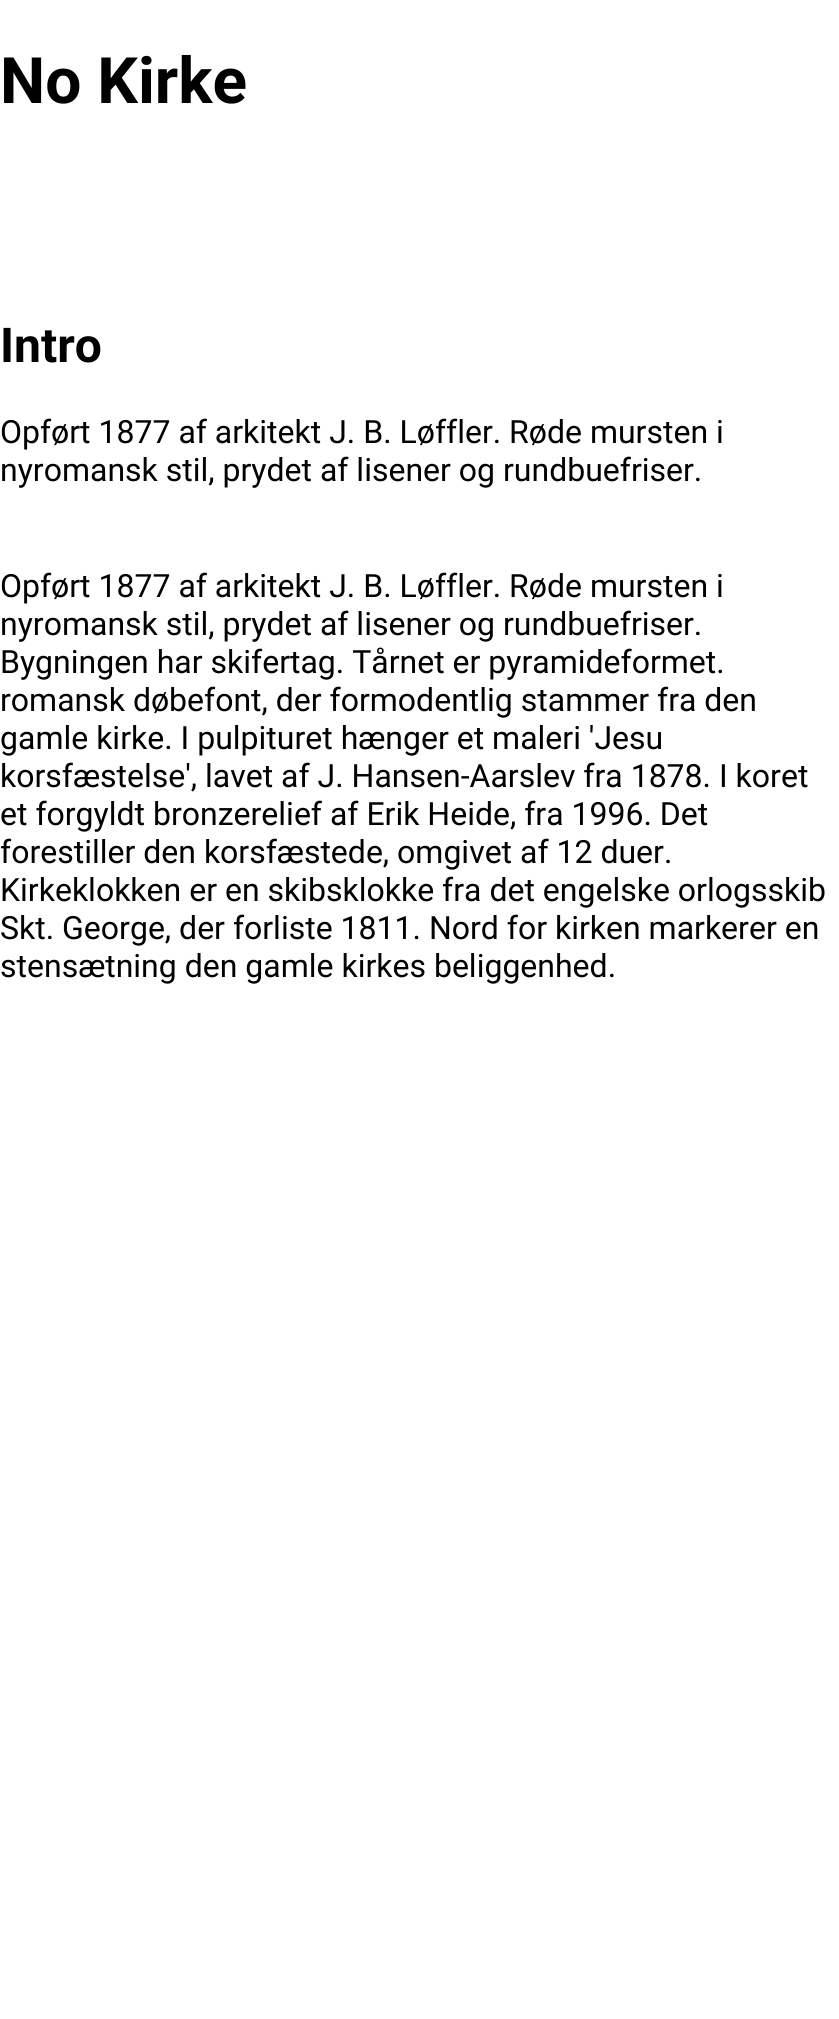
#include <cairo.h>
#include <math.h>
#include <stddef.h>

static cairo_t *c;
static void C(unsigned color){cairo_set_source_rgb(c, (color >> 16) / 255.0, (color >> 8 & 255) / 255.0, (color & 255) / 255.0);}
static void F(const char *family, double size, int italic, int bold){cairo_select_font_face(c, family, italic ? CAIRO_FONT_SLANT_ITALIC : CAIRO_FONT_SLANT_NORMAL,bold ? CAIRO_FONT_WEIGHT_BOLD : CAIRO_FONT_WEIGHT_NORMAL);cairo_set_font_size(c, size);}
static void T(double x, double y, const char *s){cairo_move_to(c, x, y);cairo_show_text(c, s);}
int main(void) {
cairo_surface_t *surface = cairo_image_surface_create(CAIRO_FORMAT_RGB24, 839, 2019);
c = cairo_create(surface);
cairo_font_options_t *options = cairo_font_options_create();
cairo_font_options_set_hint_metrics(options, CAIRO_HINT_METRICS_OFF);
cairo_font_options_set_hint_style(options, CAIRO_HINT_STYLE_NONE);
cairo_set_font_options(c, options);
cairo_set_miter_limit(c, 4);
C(0xffffff);
cairo_paint(c);
F("Roboto",64,0,1);
C(0x000000);
T(0,103,"No Kirke");
F("Roboto",48,0,1);
T(0,362,"Intro");
F("Roboto",32,0,0);
T(0,443,"Opført 1877 af arkitekt J. B. Løffler. Røde mursten i");
T(0,481,"nyromansk stil, prydet af lisener og rundbuefriser.");
T(0,597,"Opført 1877 af arkitekt J. B. Løffler. Røde mursten i");
T(0,635,"nyromansk stil, prydet af lisener og rundbuefriser.");
T(0,673,"Bygningen har skifertag. Tårnet er pyramideformet.");
T(0,711,"romansk døbefont, der formodentlig stammer fra den");
T(0,749,"gamle kirke. I pulpituret hænger et maleri 'Jesu");
T(0,787,"korsfæstelse', lavet af J. Hansen-Aarslev fra 1878. I koret");
T(0,825,"et forgyldt bronzerelief af Erik Heide, fra 1996. Det");
T(0,863,"forestiller den korsfæstede, omgivet af 12 duer.");
T(0,901,"Kirkeklokken er en skibsklokke fra det engelske orlogsskib");
T(0,939,"Skt. George, der forliste 1811. Nord for kirken markerer en");
T(0,977,"stensætning den gamle kirkes beliggenhed.");
cairo_surface_write_to_png(surface, "o.png");
cairo_font_options_destroy(options);
cairo_destroy(c);
cairo_surface_destroy(surface);
return 0;
}
